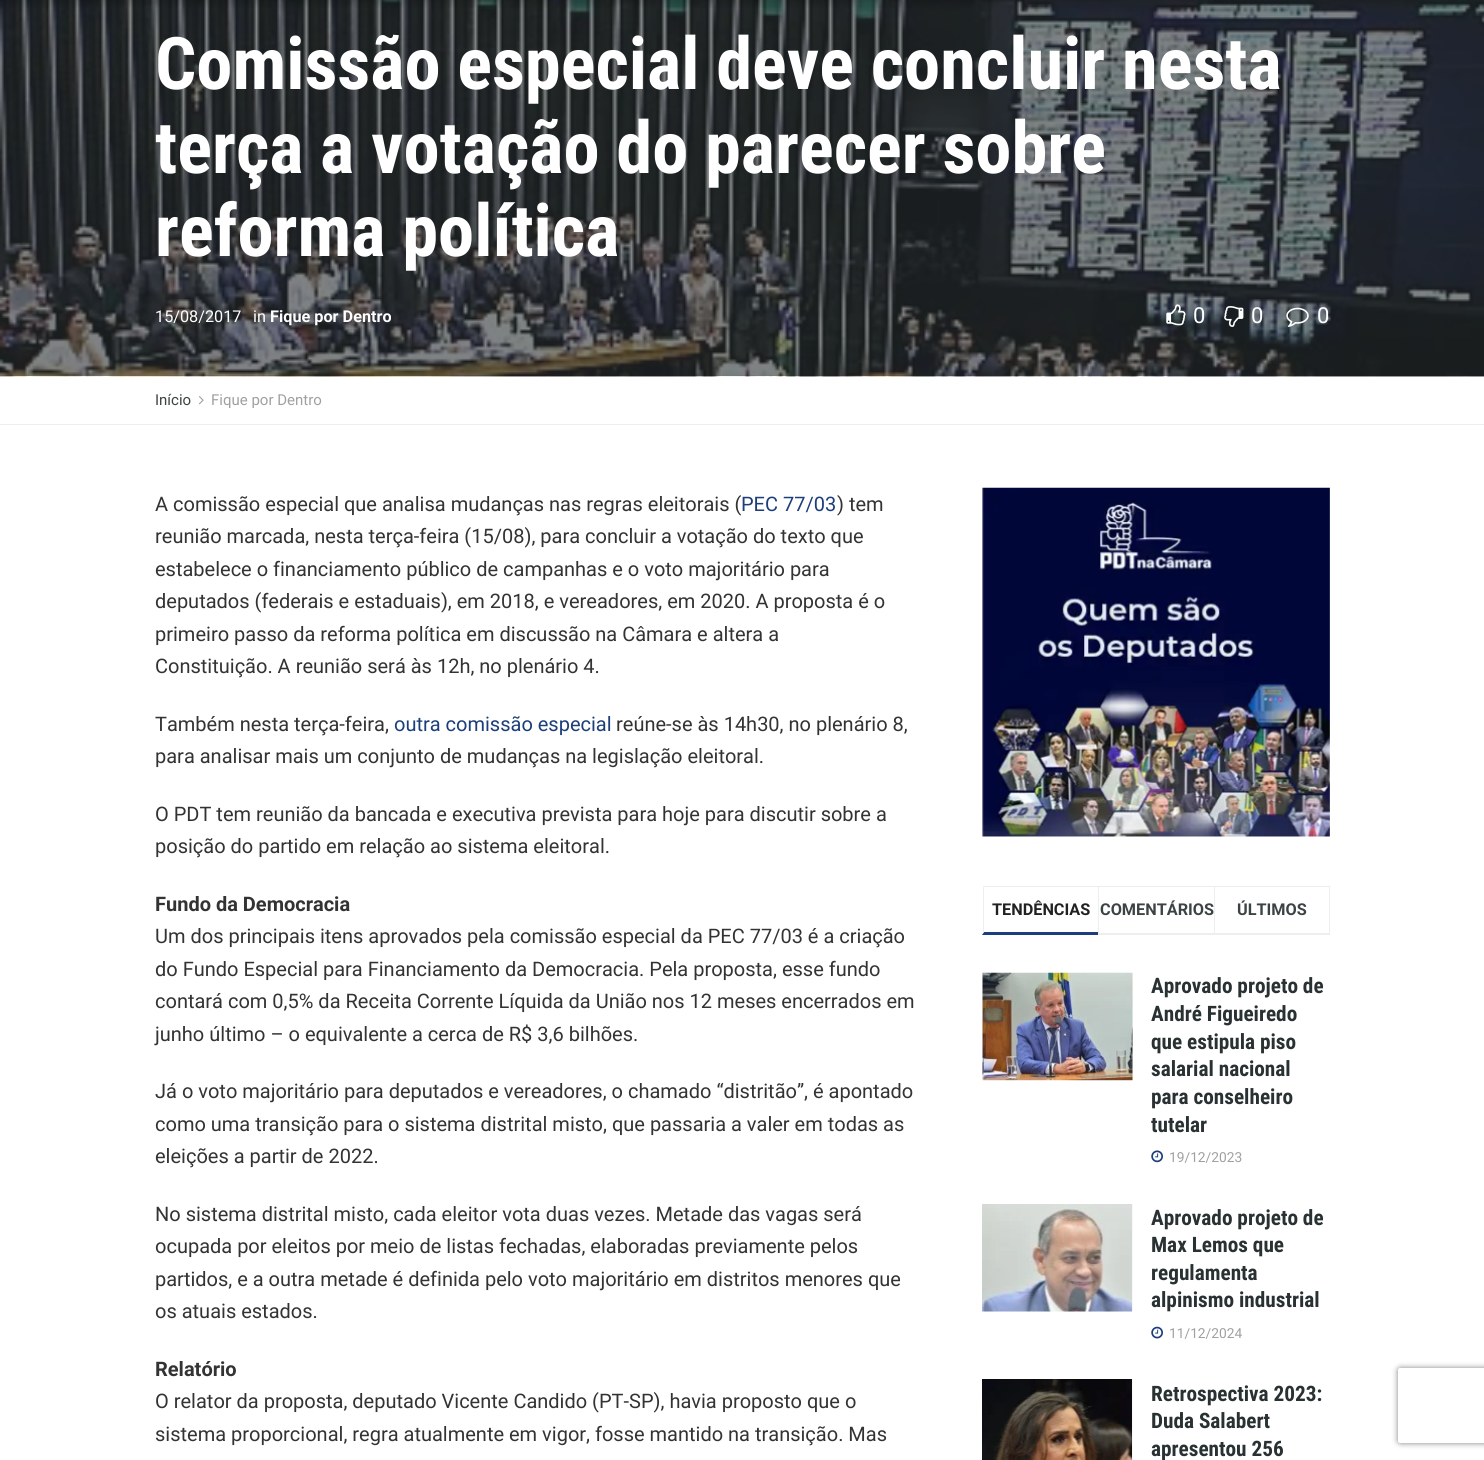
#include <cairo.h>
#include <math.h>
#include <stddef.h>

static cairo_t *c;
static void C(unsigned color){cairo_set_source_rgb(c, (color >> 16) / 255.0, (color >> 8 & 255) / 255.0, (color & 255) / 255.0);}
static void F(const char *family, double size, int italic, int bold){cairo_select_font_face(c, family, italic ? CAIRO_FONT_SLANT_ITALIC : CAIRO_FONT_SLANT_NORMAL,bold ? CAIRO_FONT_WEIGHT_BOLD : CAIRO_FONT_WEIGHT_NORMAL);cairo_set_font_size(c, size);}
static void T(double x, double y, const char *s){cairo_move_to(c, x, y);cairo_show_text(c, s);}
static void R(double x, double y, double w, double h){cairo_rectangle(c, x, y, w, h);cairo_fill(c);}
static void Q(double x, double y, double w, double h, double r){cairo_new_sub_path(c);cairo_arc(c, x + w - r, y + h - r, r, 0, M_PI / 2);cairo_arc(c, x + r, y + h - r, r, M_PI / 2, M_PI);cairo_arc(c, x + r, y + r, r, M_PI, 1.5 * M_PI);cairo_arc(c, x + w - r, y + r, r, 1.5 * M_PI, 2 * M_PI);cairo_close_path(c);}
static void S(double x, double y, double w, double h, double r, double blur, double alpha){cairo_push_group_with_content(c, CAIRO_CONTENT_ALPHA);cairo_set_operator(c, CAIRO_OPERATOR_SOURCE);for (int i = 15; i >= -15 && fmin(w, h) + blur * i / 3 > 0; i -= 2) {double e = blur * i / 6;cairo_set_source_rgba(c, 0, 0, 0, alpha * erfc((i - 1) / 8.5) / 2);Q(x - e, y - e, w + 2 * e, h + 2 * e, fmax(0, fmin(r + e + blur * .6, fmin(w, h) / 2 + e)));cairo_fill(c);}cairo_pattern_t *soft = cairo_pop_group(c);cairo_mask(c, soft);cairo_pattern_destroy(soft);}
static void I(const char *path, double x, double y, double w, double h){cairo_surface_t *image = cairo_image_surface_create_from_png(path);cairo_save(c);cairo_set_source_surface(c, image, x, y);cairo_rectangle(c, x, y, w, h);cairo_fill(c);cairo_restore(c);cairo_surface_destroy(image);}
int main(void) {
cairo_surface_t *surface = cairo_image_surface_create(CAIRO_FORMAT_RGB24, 1484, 1460);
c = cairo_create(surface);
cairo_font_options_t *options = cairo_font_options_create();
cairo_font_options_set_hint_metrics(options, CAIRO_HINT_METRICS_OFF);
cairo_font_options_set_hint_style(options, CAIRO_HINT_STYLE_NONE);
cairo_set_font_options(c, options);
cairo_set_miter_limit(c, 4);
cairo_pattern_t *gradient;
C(0xffffff);
cairo_paint(c);
C(0x293132);
R(0,0,1484,376);
I("1.png",0,0,1484,377);
gradient = cairo_pattern_create_linear(743,0,743,9);
cairo_pattern_add_color_stop_rgba(gradient,0,0,0,0,.15);
cairo_pattern_add_color_stop_rgba(gradient,1,0,0,0,0);
cairo_set_source(c,gradient);
cairo_pattern_destroy(gradient);
R(0,0,1484,8);
F("Roboto Condensed",72.5,0,1);
C(0xffffff);
T(155,89,"Comissão especial deve concluir nesta");
T(155,173,"terça a votação do parecer sobre");
T(155,256,"reforma política");
F("Roboto",16.25,0,0);
T(155,322,"15/08/2017");
T(253,322,"in");
F("Roboto",16.25,0,1);
T(270,322,"Fique por Dentro");
I("2.png",1166,304,20,22);
F("Roboto",22,0,0);
T(1193,323,"0");
I("3.png",1224,306,20,21);
T(1251,323,"0");
I("4.png",1286,307,23,20);
T(1317,323,"0");
C(0xeeeeee);
R(0,424,1484,1);
F("Roboto",15,0,0);
C(0x3c4344);
T(155,405,"Início");
I("5.png",198,396,6,9);
C(0xa0a0a0);
T(211,405,"Fique por Dentro");
F("Roboto",20,0,0);
C(0x333333);
T(155,511,"A comissão especial que analisa mudanças nas regras eleitorais (");
C(0x1c3e7a);
T(741,511,"PEC 77/03");
C(0x333333);
T(837,511,") tem");
T(155,543,"reunião marcada, nesta terça-feira (15/08), para concluir a votação do texto que");
T(155,576,"estabelece o financiamento público de campanhas e o voto majoritário para");
T(155,608,"deputados (federais e estaduais), em 2018, e vereadores, em 2020. A proposta é o");
T(155,641,"primeiro passo da reforma política em discussão na Câmara e altera a");
T(155,673,"Constituição. A reunião será às 12h, no plenário 4.");
T(155,731,"Também nesta terça-feira,");
C(0x1c3e7a);
T(394,731,"outra comissão especial");
C(0x333333);
T(616,731,"reúne-se às 14h30, no plenário 8,");
T(155,763,"para analisar mais um conjunto de mudanças na legislação eleitoral.");
T(155,821,"O PDT tem reunião da bancada e executiva prevista para hoje para discutir sobre a");
T(155,853,"posição do partido em relação ao sistema eleitoral.");
F("Roboto",20,0,1);
T(155,911,"Fundo da Democracia");
F("Roboto",20,0,0);
T(155,943,"Um dos principais itens aprovados pela comissão especial da PEC 77/03 é a criação");
T(155,976,"do Fundo Especial para Financiamento da Democracia. Pela proposta, esse fundo");
T(155,1008,"contará com 0,5% da Receita Corrente Líquida da União nos 12 meses encerrados em");
T(155,1041,"junho último – o equivalente a cerca de R$ 3,6 bilhões.");
T(155,1098,"Já o voto majoritário para deputados e vereadores, o chamado “distritão”, é apontado");
T(155,1131,"como uma transição para o sistema distrital misto, que passaria a valer em todas as");
T(155,1163,"eleições a partir de 2022.");
T(155,1221,"No sistema distrital misto, cada eleitor vota duas vezes. Metade das vagas será");
T(155,1253,"ocupada por eleitos por meio de listas fechadas, elaboradas previamente pelos");
T(155,1286,"partidos, e a outra metade é definida pelo voto majoritário em distritos menores que");
T(155,1318,"os atuais estados.");
F("Roboto",20,0,1);
T(155,1376,"Relatório");
F("Roboto",20,0,0);
T(155,1408,"O relator da proposta, deputado Vicente Candido (PT-SP), havia proposto que o");
T(155,1441,"sistema proporcional, regra atualmente em vigor, fosse mantido na transição. Mas");
I("6.png",982,487,348,350);
C(0xeeeeee);
R(983,886,347,1);
C(0x1c3e7a);
cairo_new_path(c);
cairo_move_to(c,1098,935);
cairo_line_to(c,982,935);
cairo_line_to(c,984,932);
cairo_line_to(c,1098,932);
cairo_close_path(c);
cairo_fill(c);
cairo_save(c);
cairo_rectangle(c,983,886,347,49);
cairo_clip(c);
C(0xeeeeee);
cairo_new_path(c);
cairo_move_to(c,982,935);
cairo_line_to(c,982,886);
cairo_line_to(c,984,888);
cairo_line_to(c,984,932);
cairo_close_path(c);
cairo_fill(c);
cairo_restore(c);
F("Roboto",16.25,0,1);
C(0x212121);
T(992,915,"TENDÊNCIAS");
C(0xeeeeee);
R(1098,933,116,2);
R(1098,886,1,49);
C(0x3c4344);
T(1100,915,"COMENTÁRIOS");
C(0xeeeeee);
R(1329,886,1,49);
R(1214,933,116,2);
R(1214,886,1,49);
C(0x3c4344);
T(1237,915,"ÚLTIMOS");
C(0xf7f7f7);
R(1132,973,1,107);
I("7.png",982,972,150,109);
I("8.png",982,972,151,109);
F("Roboto Condensed",21.25,0,1);
C(0x293132);
T(1151,993,"Aprovado projeto de");
T(1151,1021,"André Figueiredo");
T(1151,1049,"que estipula piso");
T(1151,1076,"salarial nacional");
T(1151,1104,"para conselheiro");
T(1151,1132,"tutelar");
I("9.png",1151,1150,12,13);
F("Roboto",13.75,0,0);
C(0xa0a0a0);
T(1169,1162,"19/12/2023");
C(0xf7f7f7);
R(1132,1204,1,107);
I("11.png",982,1311,134,1);
I("10.png",982,1204,150,108);
F("Roboto Condensed",21.25,0,1);
C(0x293132);
T(1151,1225,"Aprovado projeto de");
T(1151,1252,"Max Lemos que");
T(1151,1280,"regulamenta");
T(1151,1307,"alpinismo industrial");
I("12.png",1151,1326,12,13);
F("Roboto",13.75,0,0);
C(0xa0a0a0);
T(1169,1338,"11/12/2024");
C(0xf7f7f7);
R(1132,1379,1,81);
I("13.png",982,1379,150,81);
F("Roboto Condensed",21.25,0,1);
C(0x293132);
T(1151,1401,"Retrospectiva 2023:");
T(1151,1428,"Duda Salabert");
T(1151,1456,"apresentou 256");
cairo_save(c);
cairo_set_fill_rule(c,CAIRO_FILL_RULE_EVEN_ODD);
cairo_new_path(c);
cairo_move_to(c,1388,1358);
cairo_line_to(c,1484,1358);
cairo_line_to(c,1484,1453);
cairo_line_to(c,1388,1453);
cairo_close_path(c);
cairo_move_to(c,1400.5,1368);
cairo_line_to(c,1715.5,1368);
cairo_curve_to(c,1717,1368,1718,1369,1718,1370.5);
cairo_line_to(c,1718,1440.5);
cairo_curve_to(c,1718,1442,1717,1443,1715.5,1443);
cairo_line_to(c,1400.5,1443);
cairo_curve_to(c,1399,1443,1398,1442,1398,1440.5);
cairo_line_to(c,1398,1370.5);
cairo_curve_to(c,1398,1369,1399,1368,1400.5,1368);
cairo_close_path(c);
cairo_clip(c);
C(0x808080);
S(1398,1368,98,75,2.5,3,1);
cairo_restore(c);
cairo_surface_write_to_png(surface, "o.png");
cairo_font_options_destroy(options);
cairo_destroy(c);
cairo_surface_destroy(surface);
return 0;
}
